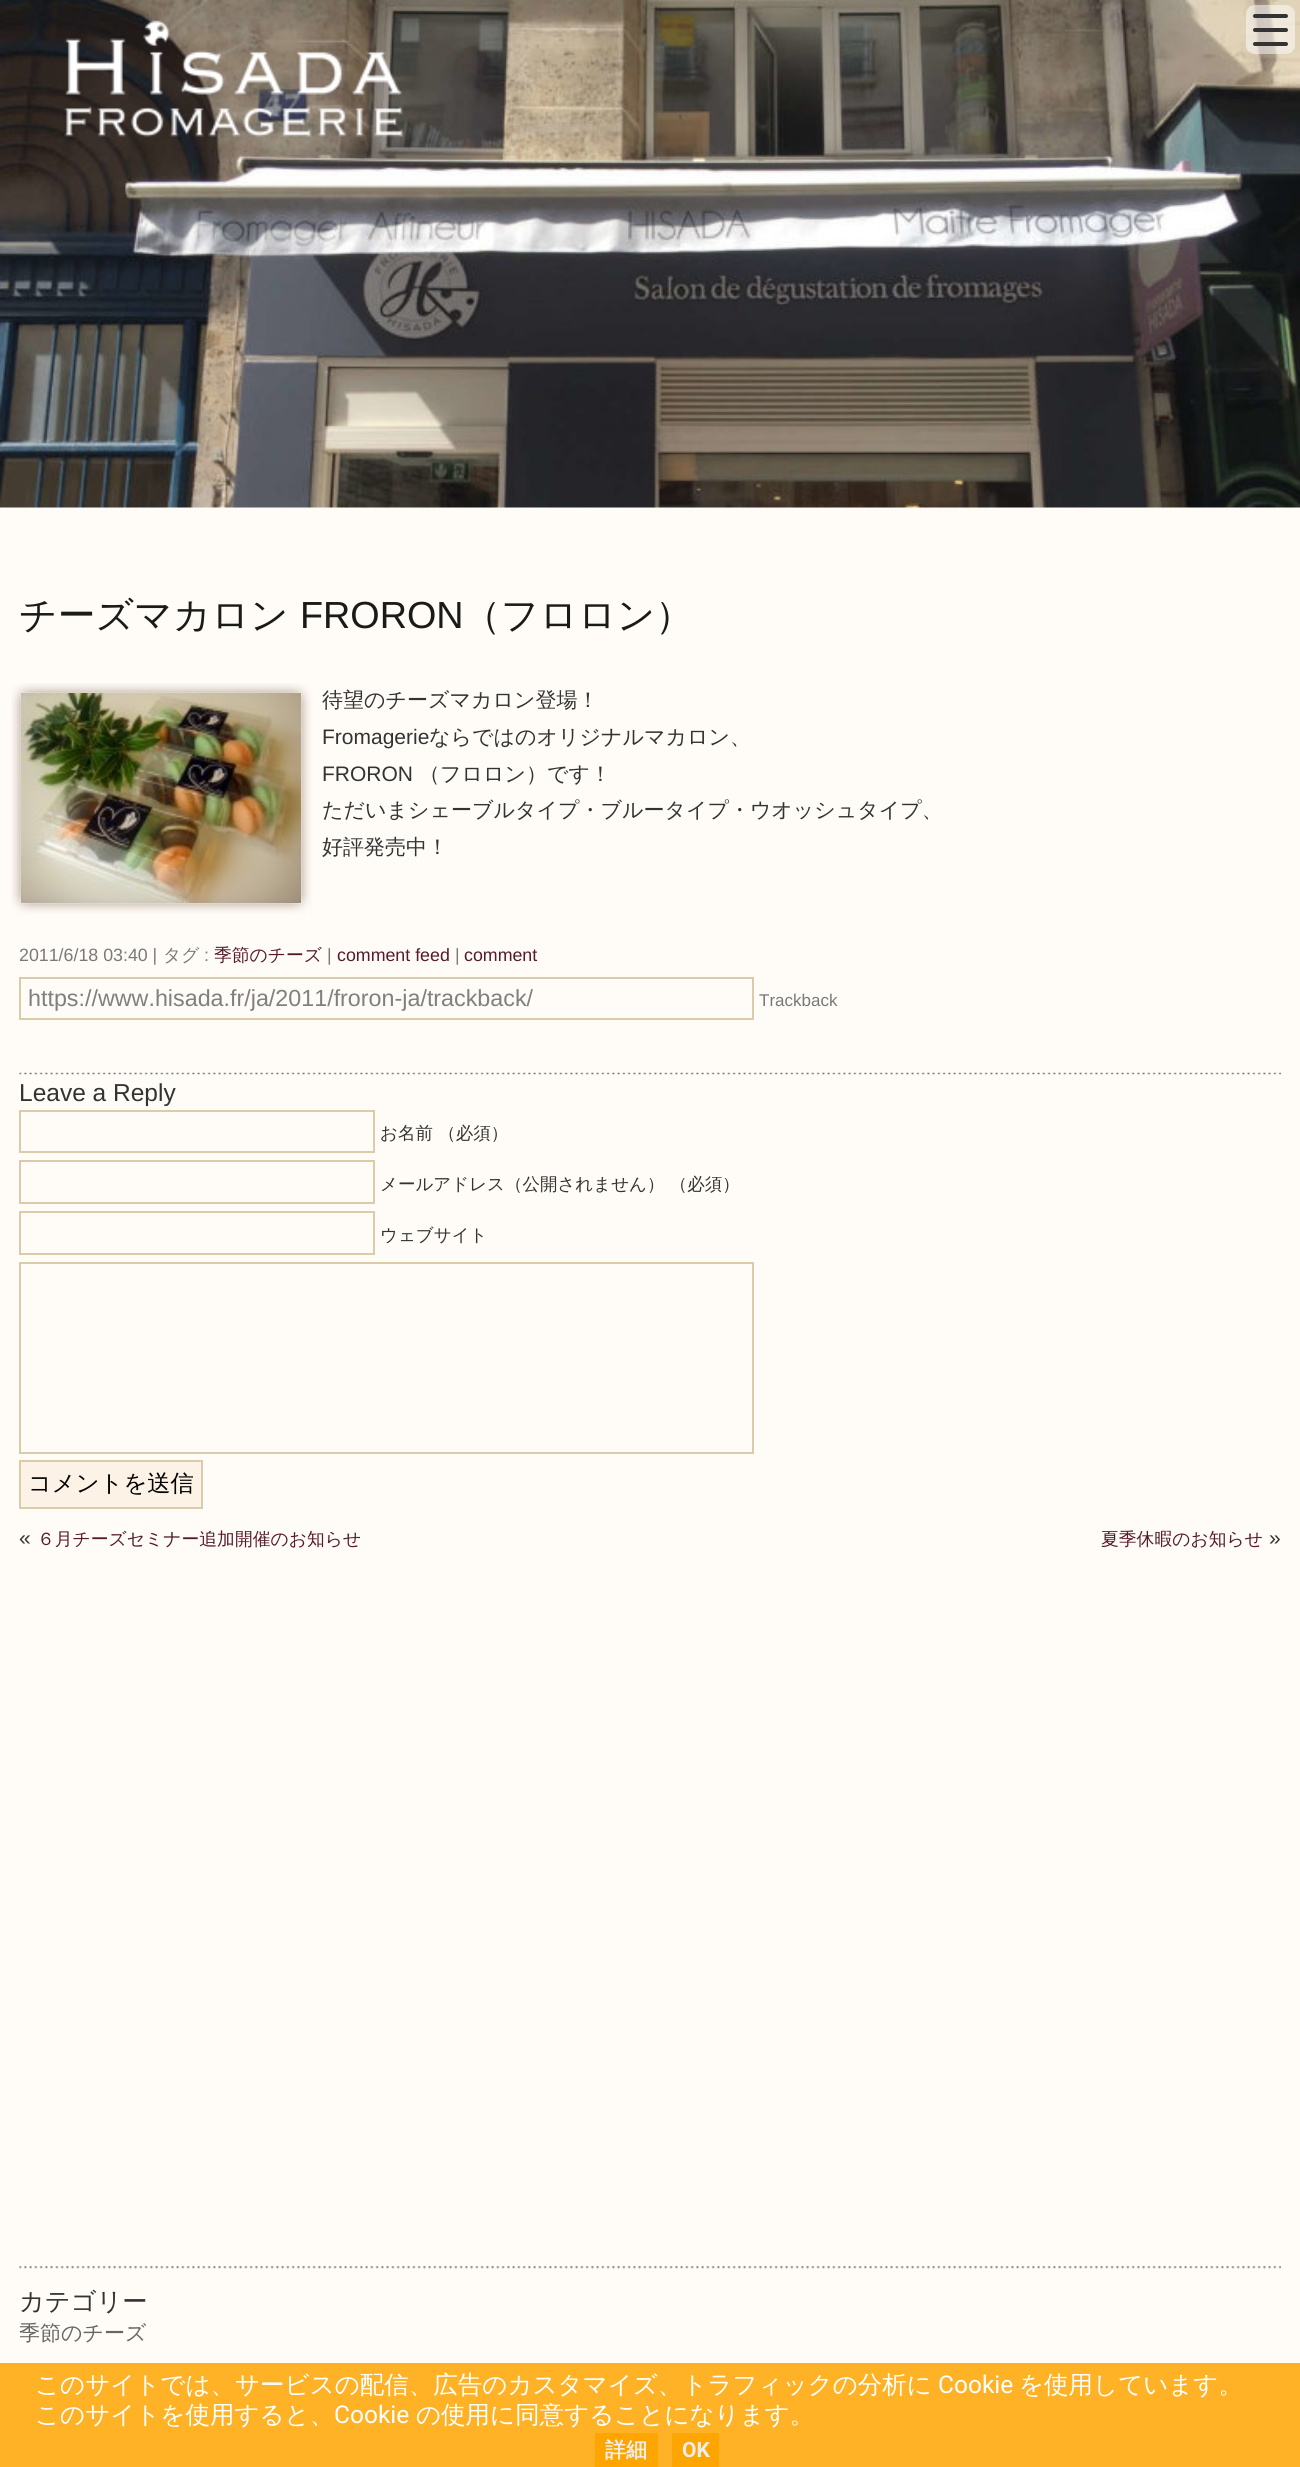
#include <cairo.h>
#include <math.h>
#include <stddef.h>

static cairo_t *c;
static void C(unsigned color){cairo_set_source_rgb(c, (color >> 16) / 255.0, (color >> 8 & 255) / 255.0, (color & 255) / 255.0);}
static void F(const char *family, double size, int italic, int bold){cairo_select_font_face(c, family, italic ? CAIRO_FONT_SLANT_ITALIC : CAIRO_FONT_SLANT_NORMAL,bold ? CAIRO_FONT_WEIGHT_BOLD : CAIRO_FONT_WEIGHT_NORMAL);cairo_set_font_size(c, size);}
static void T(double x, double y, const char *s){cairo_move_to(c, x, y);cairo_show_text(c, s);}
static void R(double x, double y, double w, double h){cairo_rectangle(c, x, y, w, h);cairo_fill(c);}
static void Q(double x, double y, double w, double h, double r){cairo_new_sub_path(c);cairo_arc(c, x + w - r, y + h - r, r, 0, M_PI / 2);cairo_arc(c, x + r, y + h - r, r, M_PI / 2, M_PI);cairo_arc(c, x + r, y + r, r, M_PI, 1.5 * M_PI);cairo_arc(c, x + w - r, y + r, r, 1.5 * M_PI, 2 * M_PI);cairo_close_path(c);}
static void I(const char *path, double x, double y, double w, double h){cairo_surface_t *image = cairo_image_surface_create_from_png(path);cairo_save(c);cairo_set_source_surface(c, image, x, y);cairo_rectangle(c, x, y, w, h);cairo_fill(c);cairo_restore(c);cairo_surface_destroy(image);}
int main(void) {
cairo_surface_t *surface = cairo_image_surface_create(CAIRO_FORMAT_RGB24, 1300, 2467);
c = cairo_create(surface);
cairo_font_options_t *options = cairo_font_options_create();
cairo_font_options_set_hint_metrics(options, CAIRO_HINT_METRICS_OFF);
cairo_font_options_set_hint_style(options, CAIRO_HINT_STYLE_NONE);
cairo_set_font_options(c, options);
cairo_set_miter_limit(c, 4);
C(0xfffcf8);
cairo_paint(c);
I("1.png",0,0,1300,508);
I("2.png",64,20,339,117);
cairo_set_source_rgba(c,1,1,1,0.5);
Q(1246,5,49,49,9);
cairo_fill(c);
C(0x333333);
Q(1253,28,35,4,2);
cairo_fill(c);
Q(1253,14,35,4,2);
cairo_fill(c);
Q(1253,42,35,4,2);
cairo_fill(c);
F("WenQuanYi Zen Hei Medium",37.75,0,0);
C(0x1a1a18);
T(19,628,"チーズマカロン");
F("Liberation Sans",37.75,0,0);
T(300,628,"FRORON");
F("WenQuanYi Zen Hei Medium",37.75,0,0);
T(463,628,"（フロロン）");
I("3.png",11,683,248,212);
I("4.png",11,895,248,22);
I("5.png",259,683,56,234);
I("6.png",259,895,52,22);
I("7.png",21,693,280,210);
F("WenQuanYi Zen Hei Medium",21,0,0);
C(0x333333);
T(322,707,"待望のチーズマカロン登場！");
F("Liberation Sans",21,0,0);
T(322,744,"Fromagerie");
F("WenQuanYi Zen Hei Medium",21,0,0);
T(429,744,"ならではのオリジナルマカロン、");
F("Liberation Sans",21,0,0);
T(322,781,"FRORON");
F("WenQuanYi Zen Hei Medium",21,0,0);
T(419,781,"（フロロン）です！");
T(322,817,"ただいまシェーブルタイプ・ブルータイプ・ウオッシュタイプ、");
T(322,854,"好評発売中！");
F("Liberation Sans",17.8,0,0);
C(0x797979);
T(19,961,"2011/6/18 03:40 |");
F("WenQuanYi Zen Hei Medium",17.8,0,0);
T(163,961,"タグ");
F("Liberation Sans",17.8,0,0);
T(204,961,":");
F("WenQuanYi Zen Hei Medium",17.8,0,0);
C(0x551a2c);
T(214,961,"季節のチーズ");
F("Liberation Sans",17.8,0,0);
C(0x797979);
T(327,961,"|");
C(0x551a2c);
T(337,961,"comment feed");
C(0x797979);
T(455,961,"|");
C(0x551a2c);
T(464,961,"comment");
cairo_rectangle(c,20,978,733,41);
C(0xdaccaa);
cairo_stroke(c);
F("Liberation Sans",23.3,0,0);
C(0x808080);
T(28,1006,"https://www.hisada.fr/ja/2011/froron-ja/trackback/");
F("Liberation Sans",17,0,0);
C(0x797979);
T(759,1006,"Trackback");
I("8.png",19,1072,1262,3);
F("Liberation Sans",24.5,0,0);
C(0x333333);
T(19,1101,"Leave a Reply");
cairo_rectangle(c,20,1111,354,41);
C(0xdaccaa);
cairo_stroke(c);
F("WenQuanYi Zen Hei Medium",17.5,0,0);
C(0x333333);
T(380,1139,"お名前 （必須）");
cairo_rectangle(c,20,1161,354,42);
C(0xdaccaa);
cairo_stroke(c);
C(0x333333);
T(380,1190,"メールアドレス（公開されません） （必須）");
cairo_rectangle(c,20,1212,354,42);
C(0xdaccaa);
cairo_stroke(c);
C(0x333333);
T(380,1241,"ウェブサイト");
cairo_rectangle(c,20,1263,733,190);
C(0xdaccaa);
cairo_stroke(c);
C(0xfcf2e5);
cairo_rectangle(c,20,1461,182,47);
cairo_fill_preserve(c);
C(0xdaccaa);
cairo_stroke(c);
F("WenQuanYi Zen Hei Medium",23.3,0,0);
C(0x000000);
T(28,1491,"コメントを送信");
F("Liberation Sans",21,0,0);
C(0x333333);
T(19,1545,"«");
F("WenQuanYi Zen Hei Medium",17.8,0,0);
C(0x551a2c);
T(37,1545,"６月チーズセミナー追加開催のお知らせ");
T(1101,1545,"夏季休暇のお知らせ");
F("Liberation Sans",21,0,0);
C(0x333333);
T(1269,1545,"»");
I("9.png",19,2266,1262,3);
F("WenQuanYi Zen Hei Medium",25.25,0,0);
T(19,2310,"カテゴリー");
F("WenQuanYi Zen Hei Medium",21,0,0);
C(0x666666);
T(19,2340,"季節のチーズ");
cairo_set_source_rgba(c,1,0.647,0,0.85);
R(0,2363,1300,104);
F("WenQuanYi Zen Hei Medium",24.5,0,0);
C(0xffffff);
T(35,2393,"このサイトでは、サービスの配信、広告のカスタマイズ、トラフィックの分析に");
F("Roboto",24.5,0,0);
T(938,2393,"Cookie");
F("WenQuanYi Zen Hei Medium",24.5,0,0);
T(1019,2393,"を使用しています。");
T(35,2423,"このサイトを使用すると、");
F("Roboto",24.5,0,0);
T(334,2423,"Cookie");
F("WenQuanYi Zen Hei Medium",24.5,0,0);
T(416,2423,"の使用に同意することになります。");
C(0xffa500);
R(595,2433,63,34);
F("WenQuanYi Zen Hei",21,0,1);
C(0xeeeeee);
T(605,2457,"詳細");
C(0xffa500);
R(672,2433,47,34);
F("Roboto",21,0,1);
C(0xeeeeee);
T(682,2457,"OK");
cairo_surface_write_to_png(surface, "o.png");
cairo_font_options_destroy(options);
cairo_destroy(c);
cairo_surface_destroy(surface);
return 0;
}
